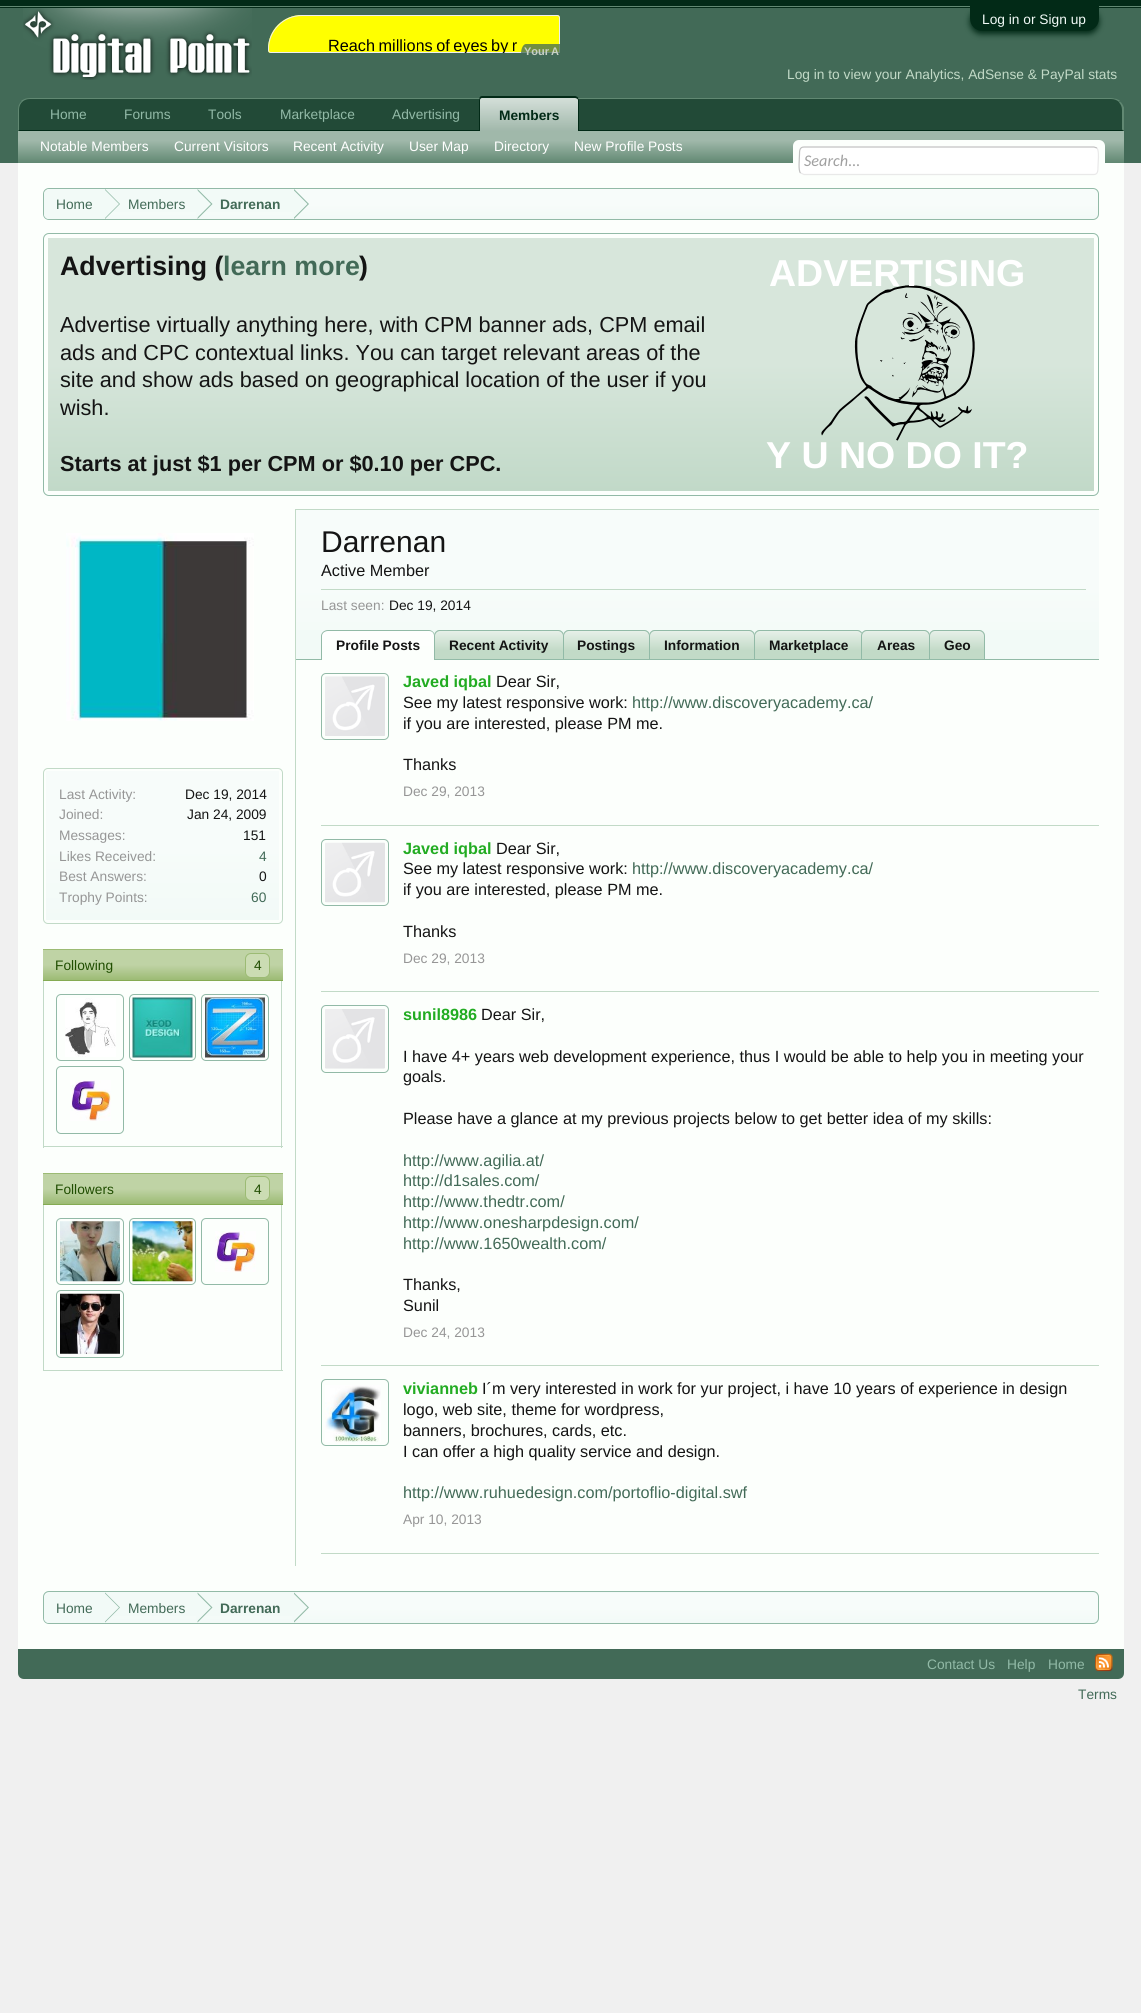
#include <cairo.h>
#include <math.h>
#include <stddef.h>

static cairo_t *c;
static void C(unsigned color){cairo_set_source_rgb(c, (color >> 16) / 255.0, (color >> 8 & 255) / 255.0, (color & 255) / 255.0);}
static void F(const char *family, double size, int italic, int bold){cairo_select_font_face(c, family, italic ? CAIRO_FONT_SLANT_ITALIC : CAIRO_FONT_SLANT_NORMAL,bold ? CAIRO_FONT_WEIGHT_BOLD : CAIRO_FONT_WEIGHT_NORMAL);cairo_set_font_size(c, size);}
static void T(double x, double y, const char *s){cairo_move_to(c, x, y);cairo_show_text(c, s);}
static void L(double x, double y, const char *s, double letter, double word){cairo_move_to(c, x, y);while (*s) {char ch[5] = {0};int n = 0;do ch[n++] = *s++; while ((*s & 0xC0) == 0x80);cairo_show_text(c, ch);cairo_rel_move_to(c, letter + word * (*ch == ' '), 0);}}
static void R(double x, double y, double w, double h){cairo_rectangle(c, x, y, w, h);cairo_fill(c);}
static void Q(double x, double y, double w, double h, double r){cairo_new_sub_path(c);cairo_arc(c, x + w - r, y + h - r, r, 0, M_PI / 2);cairo_arc(c, x + r, y + h - r, r, M_PI / 2, M_PI);cairo_arc(c, x + r, y + r, r, M_PI, 1.5 * M_PI);cairo_arc(c, x + w - r, y + r, r, 1.5 * M_PI, 2 * M_PI);cairo_close_path(c);}
static void S(double x, double y, double w, double h, double r, double blur, double alpha){cairo_push_group_with_content(c, CAIRO_CONTENT_ALPHA);cairo_set_operator(c, CAIRO_OPERATOR_SOURCE);for (int i = 15; i >= -15 && fmin(w, h) + blur * i / 3 > 0; i -= 2) {double e = blur * i / 6;cairo_set_source_rgba(c, 0, 0, 0, alpha * erfc((i - 1) / 8.5) / 2);Q(x - e, y - e, w + 2 * e, h + 2 * e, fmax(0, fmin(r + e + blur * .6, fmin(w, h) / 2 + e)));cairo_fill(c);}cairo_pattern_t *soft = cairo_pop_group(c);cairo_mask(c, soft);cairo_pattern_destroy(soft);}
static void I(const char *path, double x, double y, double w, double h){cairo_surface_t *image = cairo_image_surface_create_from_png(path);cairo_save(c);cairo_set_source_surface(c, image, x, y);cairo_rectangle(c, x, y, w, h);cairo_fill(c);cairo_restore(c);cairo_surface_destroy(image);}
int main(void) {
cairo_surface_t *surface = cairo_image_surface_create(CAIRO_FORMAT_RGB24, 1141, 2013);
c = cairo_create(surface);
cairo_font_options_t *options = cairo_font_options_create();
cairo_font_options_set_hint_metrics(options, CAIRO_HINT_METRICS_OFF);
cairo_font_options_set_hint_style(options, CAIRO_HINT_STYLE_NONE);
cairo_set_font_options(c, options);
cairo_set_miter_limit(c, 4);
cairo_pattern_t *gradient;
C(0xf0f0f0);
cairo_paint(c);
C(0x022a17);
R(0,0,1141,8);
C(0x618872);
R(0,6,1141,1);
C(0x426a57);
R(0,8,1141,155);
C(0x022a17);
S(970,9,129,25,12.5,3,1);
C(0x022a17);
cairo_new_path(c);
cairo_move_to(c,970,6);
cairo_line_to(c,1099,6);
cairo_line_to(c,1099,18.5);
cairo_curve_to(c,1099,25.5,1093.5,31,1086.5,31);
cairo_line_to(c,982.5,31);
cairo_curve_to(c,975.5,31,970,25.5,970,18.5);
cairo_close_path(c);
cairo_fill(c);
F("Liberation Sans",13.75,0,0);
C(0xf2faf7);
T(982,24,"Log in or Sign up");
I("1.png",23,8,229,72);
C(0xffff00);
cairo_new_path(c);
cairo_move_to(c,308,52);
cairo_line_to(c,560,52);
cairo_line_to(c,560,18);
cairo_curve_to(c,560,16,559,15,557,15);
cairo_line_to(c,302,15);
cairo_curve_to(c,283,15,268,30,268,49);
cairo_line_to(c,268,50);
cairo_curve_to(c,268,52,269,53,271,53);
cairo_line_to(c,300,53);
cairo_close_path(c);
cairo_fill(c);
cairo_new_path(c);
cairo_move_to(c,302,15.5);
cairo_line_to(c,557,15.5);
cairo_curve_to(c,558.5,15.5,559.5,16.5,559.5,18);
cairo_line_to(c,559.5,52.5);
cairo_line_to(c,271,52.5);
cairo_curve_to(c,269.5,52.5,268.5,51.5,268.5,50);
cairo_line_to(c,268.5,49);
cairo_curve_to(c,268.5,30.5,283.5,15.5,302,15.5);
cairo_close_path(c);
C(0xeeeeee);
cairo_set_line_width(c,1);
cairo_stroke(c);
cairo_save(c);
cairo_new_path(c);
cairo_move_to(c,302,15);
cairo_line_to(c,557,15);
cairo_curve_to(c,558.5,15,560,16.5,560,18);
cairo_line_to(c,560,53);
cairo_line_to(c,271,53);
cairo_curve_to(c,269.5,53,268,51.5,268,50);
cairo_line_to(c,268,49);
cairo_curve_to(c,268,30,283,15,302,15);
cairo_close_path(c);
cairo_clip(c);
F("Liberation Sans",16.25,0,0);
C(0x000000);
L(328,51,"Reach millions of eyes by r",0,-1);
cairo_restore(c);
cairo_set_source_rgba(c,0.259,0.416,0.341,0.75);
cairo_new_path(c);
cairo_move_to(c,526,44);
cairo_line_to(c,560,44);
cairo_line_to(c,560,54);
cairo_line_to(c,521,54);
cairo_curve_to(c,521,48,523.5,44,526,44);
cairo_close_path(c);
cairo_fill(c);
F("Liberation Sans",11,0,1);
C(0xc9d1c6);
L(524,55,"Your A",0,-1);
F("Liberation Sans",13.75,0,0);
C(0xc2dac7);
T(787,79,"Log in to view your Analytics, AdSense & PayPal stats");
C(0x224a37);
cairo_new_path(c);
cairo_move_to(c,31,98);
cairo_line_to(c,1111,98);
cairo_curve_to(c,1118,98,1124,104,1124,111);
cairo_line_to(c,1124,131);
cairo_line_to(c,18,131);
cairo_line_to(c,18,111);
cairo_curve_to(c,18,104,24,98,31,98);
cairo_close_path(c);
cairo_fill(c);
C(0x618872);
cairo_new_path(c);
cairo_move_to(c,30,98);
cairo_curve_to(c,26,98,24,99,21,101);
cairo_line_to(c,22,102);
cairo_curve_to(c,24,100,27,99,30,99);
cairo_line_to(c,1111,99);
cairo_curve_to(c,1114,99,1117,100,1119,102);
cairo_line_to(c,1120,101);
cairo_curve_to(c,1118,99,1114,98,1111,98);
cairo_close_path(c);
cairo_fill(c);
cairo_new_path(c);
cairo_move_to(c,1120,101.5);
cairo_curve_to(c,1122,103,1123,105,1124,107.5);
cairo_line_to(c,1124,131);
cairo_line_to(c,1122,129.5);
cairo_line_to(c,1122,110);
cairo_curve_to(c,1122,107,1121,104.5,1119,102.5);
cairo_close_path(c);
cairo_fill(c);
C(0x022a17);
cairo_new_path(c);
cairo_move_to(c,1124,131);
cairo_line_to(c,18,131);
cairo_line_to(c,19,130);
cairo_line_to(c,1122,130);
cairo_close_path(c);
cairo_fill(c);
C(0x618872);
cairo_new_path(c);
cairo_move_to(c,21.5,101.5);
cairo_curve_to(c,19,103.5,18,106.5,18,110);
cairo_line_to(c,18,131);
cairo_line_to(c,19,130);
cairo_line_to(c,19,110);
cairo_curve_to(c,19,107,20,104,22,102);
cairo_close_path(c);
cairo_fill(c);
C(0x92baa7);
T(50,119,"Home");
T(124,119,"Forums");
T(208,119,"Tools");
T(280,119,"Marketplace");
T(392,119,"Advertising");
C(0x618872);
cairo_new_path(c);
cairo_move_to(c,483,96);
cairo_line_to(c,575,96);
cairo_curve_to(c,577,96,579,98,579,100);
cairo_line_to(c,579,131);
cairo_line_to(c,479,131);
cairo_line_to(c,479,100);
cairo_curve_to(c,479,98,481,96,483,96);
cairo_close_path(c);
cairo_fill(c);
gradient = cairo_pattern_create_linear(529,98,529,131);
cairo_pattern_add_color_stop_rgba(gradient,0,1,1,1,.7);
cairo_pattern_add_color_stop_rgba(gradient,.1,1,1,1,.7);
cairo_pattern_add_color_stop_rgba(gradient,1,1,1,1,.4);
cairo_set_source(c,gradient);
cairo_pattern_destroy(gradient);
R(479,98,100,33);
C(0x022a17);
cairo_set_fill_rule(c,CAIRO_FILL_RULE_EVEN_ODD);
cairo_new_path(c);
cairo_move_to(c,482,96);
cairo_line_to(c,575,96);
cairo_curve_to(c,577,96,579,98,579,100);
cairo_line_to(c,579,131);
cairo_line_to(c,479,131);
cairo_line_to(c,479,100);
cairo_curve_to(c,479,98,480,96,482,96);
cairo_close_path(c);
cairo_move_to(c,482,98);
cairo_line_to(c,575,98);
cairo_curve_to(c,576,98,578,99,578,100);
cairo_line_to(c,578,131);
cairo_line_to(c,480,131);
cairo_line_to(c,480,100);
cairo_curve_to(c,480,99,481,98,482,98);
cairo_close_path(c);
cairo_fill(c);
F("Liberation Sans",13.75,0,1);
T(499,120,"Members");
gradient = cairo_pattern_create_linear(571,131,571,163);
cairo_pattern_add_color_stop_rgba(gradient,0,0.627,0.722,0.667,1);
cairo_pattern_add_color_stop_rgba(gradient,.3,0.627,0.722,0.667,1);
cairo_pattern_add_color_stop_rgba(gradient,1,0.38,0.533,0.447,1);
cairo_set_source(c,gradient);
cairo_pattern_destroy(gradient);
R(18,131,1106,32);
F("Liberation Sans",13.75,0,0);
C(0xffffff);
T(40,151,"Notable Members");
T(174,151,"Current Visitors");
T(293,151,"Recent Activity");
T(409,151,"User Map");
T(494,151,"Directory");
T(574,151,"New Profile Posts");
C(0xfcfffc);
R(18,163,1106,1486);
Q(793,140,312,35,6);
cairo_fill(c);
C(0xffffff);
Q(799,146,300,29,5);
cairo_fill(c);
cairo_new_path(c);
cairo_move_to(c,1097,148);
cairo_curve_to(c,1099.5,151,1098,163,1098,167);
cairo_curve_to(c,1098,170,1098,174.5,1094,174.5);
cairo_line_to(c,804,174.5);
cairo_line_to(c,800.5,173);
C(0xe9e9e9);
cairo_set_line_width(c,1.2);
cairo_stroke(c);
cairo_new_path(c);
cairo_move_to(c,800.5,173);
cairo_curve_to(c,798,170.5,799.5,158,799.5,154.5);
cairo_curve_to(c,799.5,151,799.5,147,804,147);
cairo_line_to(c,1094,147);
cairo_line_to(c,1097,148);
C(0xc0c0c0);
cairo_stroke(c);
F("Carlito",16.25,1,0);
C(0xa0a0a0);
T(804,166,"Search...");
cairo_save(c);
cairo_set_fill_rule(c,CAIRO_FILL_RULE_WINDING);
Q(43,188,1056,32,6);
cairo_clip(c);
gradient = cairo_pattern_create_linear(571,189,571,219);
cairo_pattern_add_color_stop_rgba(gradient,0,0.969,0.988,0.98,1);
cairo_pattern_add_color_stop_rgba(gradient,.5,0.969,0.988,0.98,1);
cairo_pattern_add_color_stop_rgba(gradient,1,0.949,0.98,0.969,1);
cairo_set_source(c,gradient);
cairo_pattern_destroy(gradient);
R(43,189,1056,30);
cairo_restore(c);
Q(43.5,188.5,1055,31,5.5);
C(0x92baa7);
cairo_set_line_width(c,1);
cairo_stroke(c);
cairo_save(c);
cairo_set_fill_rule(c,CAIRO_FILL_RULE_WINDING);
Q(44,189,1054,30,5);
cairo_clip(c);
C(0xf2faf7);
cairo_new_path(c);
cairo_move_to(c,50,189);
cairo_line_to(c,105,189);
cairo_line_to(c,105,220);
cairo_line_to(c,50,220);
cairo_curve_to(c,46.5,220,44,217.5,44,214);
cairo_line_to(c,44,195);
cairo_curve_to(c,44,191.5,46.5,189,50,189);
cairo_close_path(c);
cairo_fill(c);
cairo_restore(c);
F("Liberation Sans",13.75,0,0);
C(0x426a57);
T(56,209,"Home");
C(0xf2faf7);
R(105,189,189,23);
C(0x92baa7);
cairo_set_fill_rule(c,CAIRO_FILL_RULE_WINDING);
cairo_new_path(c);
cairo_move_to(c,105,219);
cairo_line_to(c,105,189);
cairo_line_to(c,120,204);
cairo_close_path(c);
cairo_fill(c);
C(0xf2faf7);
cairo_new_path(c);
cairo_move_to(c,104,219);
cairo_line_to(c,104,189);
cairo_line_to(c,119,204);
cairo_close_path(c);
cairo_fill(c);
C(0x426a57);
T(128,209,"Members");
C(0x92baa7);
cairo_new_path(c);
cairo_move_to(c,197.5,219);
cairo_line_to(c,197.5,189);
cairo_line_to(c,212.5,204);
cairo_close_path(c);
cairo_fill(c);
C(0xf2faf7);
cairo_new_path(c);
cairo_move_to(c,196,219);
cairo_line_to(c,196,189);
cairo_line_to(c,211,204);
cairo_close_path(c);
cairo_fill(c);
F("Liberation Sans",13.75,0,1);
C(0x426a57);
T(220,209,"Darrenan");
C(0x92baa7);
cairo_new_path(c);
cairo_move_to(c,294,219);
cairo_line_to(c,294,189);
cairo_line_to(c,309,204);
cairo_close_path(c);
cairo_fill(c);
C(0xf2faf7);
cairo_new_path(c);
cairo_move_to(c,292.5,219);
cairo_line_to(c,292.5,189);
cairo_line_to(c,307.5,204);
cairo_close_path(c);
cairo_fill(c);
Q(43.5,233.5,1055,262,5.5);
C(0x92baa7);
cairo_stroke(c);
gradient = cairo_pattern_create_linear(571,237,571,491);
cairo_pattern_add_color_stop_rgba(gradient,0,0.843,0.902,0.859,1);
cairo_pattern_add_color_stop_rgba(gradient,.5,0.843,0.902,0.859,1);
cairo_pattern_add_color_stop_rgba(gradient,1,0.757,0.851,0.784,1);
cairo_set_source(c,gradient);
cairo_pattern_destroy(gradient);
R(48,238,1046,253);
F("Liberation Sans",26.75,0,1);
C(0x141414);
T(60,275,"Advertising (");
C(0x426a57);
T(223,275,"learn more");
C(0x141414);
T(359,275,")");
I("2.png",821,285,154,156);
F("Liberation Sans",37.5,0,1);
C(0xffffff);
T(769,286,"ADVERTISING");
T(766,468,"Y U NO DO IT?");
F("Liberation Sans",21.7,0,0);
C(0x141414);
T(60,332,"Advertise virtually anything here, with CPM banner ads, CPM email");
T(60,360,"ads and CPC contextual links. You can target relevant areas of the");
T(60,387,"site and show ads based on geographical location of the user if you");
T(60,415,"wish.");
F("Liberation Sans",21.7,0,1);
T(60,471,"Starts at just $1 per CPM or $0.10 per CPC.");
I("3.png",66,533,188,188);
Q(43.5,768.5,239,155,4.5);
C(0xc2dac7);
cairo_stroke(c);
gradient = cairo_pattern_create_linear(163,771,163,920);
cairo_pattern_add_color_stop_rgba(gradient,0,0.969,0.988,0.98,1);
cairo_pattern_add_color_stop_rgba(gradient,.5,0.969,0.988,0.98,1);
cairo_pattern_add_color_stop_rgba(gradient,1,0.949,0.98,0.969,1);
cairo_set_source(c,gradient);
cairo_pattern_destroy(gradient);
R(46,771,233,149);
F("Liberation Sans",13.75,0,0);
C(0x969696);
T(59,799,"Last Activity:");
C(0x141414);
T(185,799,"Dec 19, 2014");
C(0x969696);
T(59,819,"Joined:");
C(0x141414);
T(187,819,"Jan 24, 2009");
C(0x969696);
T(59,840,"Messages:");
C(0x141414);
T(243,840,"151");
C(0x969696);
T(59,861,"Likes Received:");
C(0x426a57);
T(259,861,"4");
C(0x969696);
T(59,881,"Best Answers:");
C(0x141414);
T(259,881,"0");
C(0x969696);
T(59,902,"Trophy Points:");
C(0x426a57);
T(251,902,"60");
gradient = cairo_pattern_create_linear(163,950,163,980);
cairo_pattern_add_color_stop_rgba(gradient,0,0.749,0.827,0.647,1);
cairo_pattern_add_color_stop_rgba(gradient,.5,0.749,0.827,0.647,1);
cairo_pattern_add_color_stop_rgba(gradient,1,0.612,0.733,0.455,1);
cairo_set_source(c,gradient);
cairo_pattern_destroy(gradient);
R(43,950,240,30);
C(0x9cbb74);
R(43,949,240,1);
C(0x85ab52);
R(43,980,240,1);
C(0x1f4d00);
T(55,970,"Following");
C(0xcbdcb3);
Q(245.5,953.5,24,24,5.5);
cairo_fill_preserve(c);
C(0x9cbb74);
cairo_stroke(c);
C(0x1f4d00);
T(254,970,"4");
C(0xc2dac7);
R(281,981,1,167);
R(43,1146,240,1);
R(43,981,1,167);
I("4.png",65,998,51,59);
Q(56.5,994.5,67,66,4.5);
C(0x92baa7);
cairo_stroke(c);
I("5.png",132,997,61,61);
Q(129.5,994.5,66,66,4.5);
cairo_stroke(c);
I("6.png",205,997,60,61);
Q(201.5,994.5,67,66,4.5);
cairo_stroke(c);
I("7.png",70,1080,41,41);
Q(56.5,1066.5,67,67,4.5);
cairo_stroke(c);
gradient = cairo_pattern_create_linear(163,1174,163,1204);
cairo_pattern_add_color_stop_rgba(gradient,0,0.749,0.827,0.647,1);
cairo_pattern_add_color_stop_rgba(gradient,.5,0.749,0.827,0.647,1);
cairo_pattern_add_color_stop_rgba(gradient,1,0.612,0.733,0.455,1);
cairo_set_source(c,gradient);
cairo_pattern_destroy(gradient);
R(43,1174,240,30);
C(0x9cbb74);
R(43,1173,240,1);
C(0x85ab52);
R(43,1204,240,1);
C(0x1f4d00);
T(55,1194,"Followers");
C(0xcbdcb3);
Q(245.5,1176.5,24,24,5.5);
cairo_fill_preserve(c);
C(0x9cbb74);
cairo_stroke(c);
C(0x1f4d00);
T(254,1194,"4");
C(0xc2dac7);
R(281,1205,1,166);
R(43,1370,240,1);
R(43,1205,1,166);
I("8.png",60,1221,60,61);
Q(56.5,1218.5,67,66,4.5);
C(0x92baa7);
cairo_stroke(c);
I("9.png",132,1221,61,61);
Q(129.5,1218.5,66,66,4.5);
cairo_stroke(c);
I("10.png",215,1231,41,41);
Q(201.5,1218.5,67,66,4.5);
cairo_stroke(c);
I("11.png",60,1293,60,61);
Q(56.5,1290.5,67,67,4.5);
cairo_stroke(c);
C(0xc2dac7);
R(295,509,1,1057);
R(296,509,803,1);
gradient = cairo_pattern_create_linear(698,510,698,659);
cairo_pattern_add_color_stop_rgba(gradient,0,0.969,0.988,0.98,1);
cairo_pattern_add_color_stop_rgba(gradient,.5,0.969,0.988,0.98,1);
cairo_pattern_add_color_stop_rgba(gradient,1,0.949,0.98,0.969,1);
cairo_set_source(c,gradient);
cairo_pattern_destroy(gradient);
R(296,510,803,120);
F("Liberation Sans",30,0,0);
C(0x141414);
T(321,552,"Darrenan");
F("Liberation Sans",16.25,0,0);
T(321,576,"Active Member");
C(0xc2dac7);
R(321,589,765,1);
F("Liberation Sans",13.75,0,0);
C(0x969696);
T(321,610,"Last seen:");
C(0x141414);
T(389,610,"Dec 19, 2014");
C(0xf2faf7);
R(296,630,803,29);
C(0x92baa7);
R(296,659,803,1);
cairo_save(c);
cairo_new_path(c);
cairo_move_to(c,327,630);
cairo_line_to(c,429,630);
cairo_curve_to(c,432.5,630,435,632.5,435,636);
cairo_line_to(c,435,660);
cairo_line_to(c,321,660);
cairo_line_to(c,321,636);
cairo_curve_to(c,321,632.5,323.5,630,327,630);
cairo_close_path(c);
cairo_clip(c);
gradient = cairo_pattern_create_linear(378,603,378,631);
cairo_pattern_add_color_stop_rgba(gradient,0,0.996,1,0.996,1);
cairo_pattern_add_color_stop_rgba(gradient,.7,0.988,1,0.988,1);
cairo_set_source(c,gradient);
cairo_pattern_destroy(gradient);
R(321,630,114,1);
gradient = cairo_pattern_create_linear(378,631,378,660);
cairo_pattern_add_color_stop_rgba(gradient,0,0.996,1,0.996,1);
cairo_pattern_add_color_stop_rgba(gradient,.7,0.988,1,0.988,1);
cairo_set_source(c,gradient);
cairo_pattern_destroy(gradient);
R(321,631,114,29);
cairo_restore(c);
cairo_set_fill_rule(c,CAIRO_FILL_RULE_EVEN_ODD);
cairo_new_path(c);
cairo_move_to(c,328,630);
cairo_line_to(c,429,630);
cairo_curve_to(c,432,630,435,633,435,636);
cairo_line_to(c,435,660);
cairo_line_to(c,321,660);
cairo_line_to(c,321,636);
cairo_curve_to(c,321,633,324,630,328,630);
cairo_close_path(c);
cairo_move_to(c,328,631);
cairo_line_to(c,429,631);
cairo_curve_to(c,432,631,434,633,434,636);
cairo_line_to(c,434,660);
cairo_line_to(c,322,660);
cairo_line_to(c,322,636);
cairo_curve_to(c,322,633,325,631,328,631);
cairo_close_path(c);
cairo_fill(c);
F("Liberation Sans",13.75,0,1);
C(0x141414);
T(336,650,"Profile Posts");
C(0xc2dac7);
cairo_new_path(c);
cairo_move_to(c,440,630);
cairo_line_to(c,558,630);
cairo_curve_to(c,561.5,630,564,632.5,564,636);
cairo_line_to(c,564,660);
cairo_line_to(c,434,660);
cairo_line_to(c,434,636);
cairo_curve_to(c,434,632.5,436.5,630,440,630);
cairo_close_path(c);
cairo_fill(c);
cairo_save(c);
cairo_set_fill_rule(c,CAIRO_FILL_RULE_WINDING);
cairo_new_path(c);
cairo_move_to(c,440,630);
cairo_line_to(c,558,630);
cairo_curve_to(c,561.5,630,564,632.5,564,636);
cairo_line_to(c,564,660);
cairo_line_to(c,434,660);
cairo_line_to(c,434,636);
cairo_curve_to(c,434,632.5,436.5,630,440,630);
cairo_close_path(c);
cairo_clip(c);
gradient = cairo_pattern_create_linear(499,631,499,659);
cairo_pattern_add_color_stop_rgba(gradient,0,1,1,1,.6);
cairo_pattern_add_color_stop_rgba(gradient,.7,1,1,1,0);
cairo_set_source(c,gradient);
cairo_pattern_destroy(gradient);
R(434,631,130,19);
cairo_restore(c);
cairo_new_path(c);
cairo_move_to(c,440,630.5);
cairo_line_to(c,558,630.5);
cairo_curve_to(c,561,630.5,563.5,633,563.5,636);
cairo_line_to(c,563.5,659.5);
cairo_line_to(c,434.5,659.5);
cairo_line_to(c,434.5,636);
cairo_curve_to(c,434.5,633,437,630.5,440,630.5);
cairo_close_path(c);
C(0x92baa7);
cairo_stroke(c);
C(0x141414);
T(449,650,"Recent Activity");
C(0xc2dac7);
cairo_new_path(c);
cairo_move_to(c,569,630);
cairo_line_to(c,644,630);
cairo_curve_to(c,647.5,630,650,632.5,650,636);
cairo_line_to(c,650,660);
cairo_line_to(c,563,660);
cairo_line_to(c,563,636);
cairo_curve_to(c,563,632.5,565.5,630,569,630);
cairo_close_path(c);
cairo_fill(c);
cairo_save(c);
cairo_set_fill_rule(c,CAIRO_FILL_RULE_WINDING);
cairo_new_path(c);
cairo_move_to(c,569,630);
cairo_line_to(c,644,630);
cairo_curve_to(c,647.5,630,650,632.5,650,636);
cairo_line_to(c,650,660);
cairo_line_to(c,563,660);
cairo_line_to(c,563,636);
cairo_curve_to(c,563,632.5,565.5,630,569,630);
cairo_close_path(c);
cairo_clip(c);
gradient = cairo_pattern_create_linear(606,631,606,659);
cairo_pattern_add_color_stop_rgba(gradient,0,1,1,1,.6);
cairo_pattern_add_color_stop_rgba(gradient,.7,1,1,1,0);
cairo_set_source(c,gradient);
cairo_pattern_destroy(gradient);
R(563,631,87,19);
cairo_restore(c);
cairo_new_path(c);
cairo_move_to(c,569,630.5);
cairo_line_to(c,644,630.5);
cairo_curve_to(c,647,630.5,649.5,633,649.5,636);
cairo_line_to(c,649.5,659.5);
cairo_line_to(c,563.5,659.5);
cairo_line_to(c,563.5,636);
cairo_curve_to(c,563.5,633,566,630.5,569,630.5);
cairo_close_path(c);
C(0x92baa7);
cairo_stroke(c);
C(0x141414);
T(577,650,"Postings");
C(0xc2dac7);
cairo_new_path(c);
cairo_move_to(c,655,630);
cairo_line_to(c,749,630);
cairo_curve_to(c,752.5,630,755,632.5,755,636);
cairo_line_to(c,755,660);
cairo_line_to(c,649,660);
cairo_line_to(c,649,636);
cairo_curve_to(c,649,632.5,651.5,630,655,630);
cairo_close_path(c);
cairo_fill(c);
cairo_save(c);
cairo_set_fill_rule(c,CAIRO_FILL_RULE_WINDING);
cairo_new_path(c);
cairo_move_to(c,655,630);
cairo_line_to(c,749,630);
cairo_curve_to(c,752.5,630,755,632.5,755,636);
cairo_line_to(c,755,660);
cairo_line_to(c,649,660);
cairo_line_to(c,649,636);
cairo_curve_to(c,649,632.5,651.5,630,655,630);
cairo_close_path(c);
cairo_clip(c);
gradient = cairo_pattern_create_linear(702,631,702,659);
cairo_pattern_add_color_stop_rgba(gradient,0,1,1,1,.6);
cairo_pattern_add_color_stop_rgba(gradient,.7,1,1,1,0);
cairo_set_source(c,gradient);
cairo_pattern_destroy(gradient);
R(649,631,106,19);
cairo_restore(c);
cairo_new_path(c);
cairo_move_to(c,655,630.5);
cairo_line_to(c,749,630.5);
cairo_curve_to(c,752,630.5,754.5,633,754.5,636);
cairo_line_to(c,754.5,659.5);
cairo_line_to(c,649.5,659.5);
cairo_line_to(c,649.5,636);
cairo_curve_to(c,649.5,633,652,630.5,655,630.5);
cairo_close_path(c);
C(0x92baa7);
cairo_stroke(c);
C(0x141414);
T(664,650,"Information");
C(0xc2dac7);
cairo_new_path(c);
cairo_move_to(c,760,630);
cairo_line_to(c,857,630);
cairo_curve_to(c,860.5,630,863,632.5,863,636);
cairo_line_to(c,863,660);
cairo_line_to(c,754,660);
cairo_line_to(c,754,636);
cairo_curve_to(c,754,632.5,756.5,630,760,630);
cairo_close_path(c);
cairo_fill(c);
cairo_save(c);
cairo_set_fill_rule(c,CAIRO_FILL_RULE_WINDING);
cairo_new_path(c);
cairo_move_to(c,760,630);
cairo_line_to(c,857,630);
cairo_curve_to(c,860.5,630,863,632.5,863,636);
cairo_line_to(c,863,660);
cairo_line_to(c,754,660);
cairo_line_to(c,754,636);
cairo_curve_to(c,754,632.5,756.5,630,760,630);
cairo_close_path(c);
cairo_clip(c);
gradient = cairo_pattern_create_linear(808,631,808,659);
cairo_pattern_add_color_stop_rgba(gradient,0,1,1,1,.6);
cairo_pattern_add_color_stop_rgba(gradient,.7,1,1,1,0);
cairo_set_source(c,gradient);
cairo_pattern_destroy(gradient);
R(754,631,108,19);
cairo_restore(c);
cairo_new_path(c);
cairo_move_to(c,760,630.5);
cairo_line_to(c,857,630.5);
cairo_curve_to(c,860,630.5,862.5,633,862.5,636);
cairo_line_to(c,862.5,659.5);
cairo_line_to(c,754.5,659.5);
cairo_line_to(c,754.5,636);
cairo_curve_to(c,754.5,633,757,630.5,760,630.5);
cairo_close_path(c);
C(0x92baa7);
cairo_stroke(c);
C(0x141414);
T(769,650,"Marketplace");
C(0xc2dac7);
cairo_new_path(c);
cairo_move_to(c,867,630);
cairo_line_to(c,924,630);
cairo_curve_to(c,927.5,630,930,632.5,930,636);
cairo_line_to(c,930,660);
cairo_line_to(c,861,660);
cairo_line_to(c,861,636);
cairo_curve_to(c,861,632.5,863.5,630,867,630);
cairo_close_path(c);
cairo_fill(c);
cairo_save(c);
cairo_set_fill_rule(c,CAIRO_FILL_RULE_WINDING);
cairo_new_path(c);
cairo_move_to(c,867,630);
cairo_line_to(c,924,630);
cairo_curve_to(c,927.5,630,930,632.5,930,636);
cairo_line_to(c,930,660);
cairo_line_to(c,861,660);
cairo_line_to(c,861,636);
cairo_curve_to(c,861,632.5,863.5,630,867,630);
cairo_close_path(c);
cairo_clip(c);
gradient = cairo_pattern_create_linear(896,631,896,659);
cairo_pattern_add_color_stop_rgba(gradient,0,1,1,1,.6);
cairo_pattern_add_color_stop_rgba(gradient,.7,1,1,1,0);
cairo_set_source(c,gradient);
cairo_pattern_destroy(gradient);
R(861,631,69,19);
cairo_restore(c);
cairo_new_path(c);
cairo_move_to(c,867,630.5);
cairo_line_to(c,924,630.5);
cairo_curve_to(c,927,630.5,929.5,633,929.5,636);
cairo_line_to(c,929.5,659.5);
cairo_line_to(c,861.5,659.5);
cairo_line_to(c,861.5,636);
cairo_curve_to(c,861.5,633,864,630.5,867,630.5);
cairo_close_path(c);
C(0x92baa7);
cairo_stroke(c);
C(0x141414);
T(877,650,"Areas");
C(0xc2dac7);
cairo_new_path(c);
cairo_move_to(c,935,630);
cairo_line_to(c,979,630);
cairo_curve_to(c,982.5,630,985,632.5,985,636);
cairo_line_to(c,985,660);
cairo_line_to(c,929,660);
cairo_line_to(c,929,636);
cairo_curve_to(c,929,632.5,931.5,630,935,630);
cairo_close_path(c);
cairo_fill(c);
cairo_save(c);
cairo_set_fill_rule(c,CAIRO_FILL_RULE_WINDING);
cairo_new_path(c);
cairo_move_to(c,935,630);
cairo_line_to(c,979,630);
cairo_curve_to(c,982.5,630,985,632.5,985,636);
cairo_line_to(c,985,660);
cairo_line_to(c,929,660);
cairo_line_to(c,929,636);
cairo_curve_to(c,929,632.5,931.5,630,935,630);
cairo_close_path(c);
cairo_clip(c);
gradient = cairo_pattern_create_linear(957,631,957,659);
cairo_pattern_add_color_stop_rgba(gradient,0,1,1,1,.6);
cairo_pattern_add_color_stop_rgba(gradient,.7,1,1,1,0);
cairo_set_source(c,gradient);
cairo_pattern_destroy(gradient);
R(929,631,56,19);
cairo_restore(c);
cairo_new_path(c);
cairo_move_to(c,935,630.5);
cairo_line_to(c,979,630.5);
cairo_curve_to(c,982,630.5,984.5,633,984.5,636);
cairo_line_to(c,984.5,659.5);
cairo_line_to(c,929.5,659.5);
cairo_line_to(c,929.5,636);
cairo_curve_to(c,929.5,633,932,630.5,935,630.5);
cairo_close_path(c);
C(0x92baa7);
cairo_stroke(c);
C(0x141414);
T(944,650,"Geo");
C(0xc2dac7);
R(321,825,778,1);
Q(321.5,673.5,67,66,4.5);
C(0x92baa7);
cairo_stroke(c);
I("12.png",325,676,60,60);
F("Liberation Sans",16.25,0,1);
C(0x22ac22);
T(403,687,"Javed iqbal");
F("Liberation Sans",16.25,0,0);
C(0x141414);
T(496,687,"Dear Sir,");
T(403,708,"See my latest responsive work:");
C(0x426a57);
T(632,708,"http://www.discoveryacademy.ca/");
C(0x141414);
T(403,729,"if you are interested, please PM me.");
T(403,770,"Thanks");
F("Liberation Sans",13.75,0,0);
C(0x969696);
T(403,796,"Dec 29, 2013");
C(0xc2dac7);
R(321,991,778,1);
Q(321.5,839.5,67,66,4.5);
C(0x92baa7);
cairo_stroke(c);
I("13.png",325,842,60,61);
F("Liberation Sans",16.25,0,1);
C(0x22ac22);
T(403,854,"Javed iqbal");
F("Liberation Sans",16.25,0,0);
C(0x141414);
T(496,854,"Dear Sir,");
T(403,874,"See my latest responsive work:");
C(0x426a57);
T(632,874,"http://www.discoveryacademy.ca/");
C(0x141414);
T(403,895,"if you are interested, please PM me.");
T(403,937,"Thanks");
F("Liberation Sans",13.75,0,0);
C(0x969696);
T(403,963,"Dec 29, 2013");
C(0xc2dac7);
R(321,1365,778,1);
Q(321.5,1005.5,67,67,4.5);
C(0x92baa7);
cairo_stroke(c);
I("14.png",325,1009,60,60);
F("Liberation Sans",16.25,0,1);
C(0x22ac22);
T(403,1020,"sunil8986");
F("Liberation Sans",16.25,0,0);
C(0x141414);
T(481,1020,"Dear Sir,");
T(403,1062,"I have 4+ years web development experience, thus I would be able to help you in meeting your");
T(403,1082,"goals.");
T(403,1124,"Please have a glance at my previous projects below to get better idea of my skills:");
C(0x426a57);
T(403,1166,"http://www.agilia.at/");
T(403,1186,"http://d1sales.com/");
T(403,1207,"http://www.thedtr.com/");
T(403,1228,"http://www.onesharpdesign.com/");
T(403,1249,"http://www.1650wealth.com/");
C(0x141414);
T(403,1290,"Thanks,");
T(403,1311,"Sunil");
F("Liberation Sans",13.75,0,0);
C(0x969696);
T(403,1337,"Dec 24, 2013");
C(0xc2dac7);
R(321,1553,778,1);
Q(321.5,1379.5,67,66,4.5);
C(0x92baa7);
cairo_stroke(c);
I("15.png",325,1385,56,58);
F("Liberation Sans",16.25,0,1);
C(0x22ac22);
T(403,1394,"vivianneb");
F("Liberation Sans",16.25,0,0);
C(0x141414);
T(482,1394,"I´m very interested in work for yur project, i have 10 years of experience in design");
T(403,1415,"logo, web site, theme for wordpress,");
T(403,1436,"banners, brochures, cards, etc.");
T(403,1457,"I can offer a high quality service and design.");
C(0x426a57);
T(403,1498,"http://www.ruhuedesign.com/portoflio-digital.swf");
F("Liberation Sans",13.75,0,0);
C(0x969696);
T(403,1524,"Apr 10, 2013");
cairo_save(c);
cairo_set_fill_rule(c,CAIRO_FILL_RULE_WINDING);
Q(43,1591,1056,33,6);
cairo_clip(c);
gradient = cairo_pattern_create_linear(571,1563,571,1593);
cairo_pattern_add_color_stop_rgba(gradient,0,0.969,0.988,0.98,1);
cairo_pattern_add_color_stop_rgba(gradient,.5,0.969,0.988,0.98,1);
cairo_pattern_add_color_stop_rgba(gradient,1,0.949,0.98,0.969,1);
cairo_set_source(c,gradient);
cairo_pattern_destroy(gradient);
R(43,1591,1056,2);
gradient = cairo_pattern_create_linear(571,1593,571,1623);
cairo_pattern_add_color_stop_rgba(gradient,0,0.969,0.988,0.98,1);
cairo_pattern_add_color_stop_rgba(gradient,.5,0.969,0.988,0.98,1);
cairo_pattern_add_color_stop_rgba(gradient,1,0.949,0.98,0.969,1);
cairo_set_source(c,gradient);
cairo_pattern_destroy(gradient);
R(43,1593,1056,30);
cairo_restore(c);
Q(43.5,1591.5,1055,32,5.5);
C(0x92baa7);
cairo_stroke(c);
cairo_save(c);
cairo_set_fill_rule(c,CAIRO_FILL_RULE_WINDING);
Q(44,1593,1054,30,5);
cairo_clip(c);
C(0xf2faf7);
cairo_new_path(c);
cairo_move_to(c,50,1593);
cairo_line_to(c,105,1593);
cairo_line_to(c,105,1624);
cairo_line_to(c,50,1624);
cairo_curve_to(c,46.5,1624,44,1621.5,44,1618);
cairo_line_to(c,44,1599);
cairo_curve_to(c,44,1595.5,46.5,1593,50,1593);
cairo_close_path(c);
cairo_fill(c);
cairo_restore(c);
C(0x426a57);
T(56,1613,"Home");
C(0xf2faf7);
R(105,1593,189,23);
C(0x92baa7);
cairo_set_fill_rule(c,CAIRO_FILL_RULE_WINDING);
cairo_new_path(c);
cairo_move_to(c,105,1622.5);
cairo_line_to(c,105,1592.5);
cairo_line_to(c,120,1607.5);
cairo_close_path(c);
cairo_fill(c);
C(0xf2faf7);
cairo_new_path(c);
cairo_move_to(c,104,1622.5);
cairo_line_to(c,104,1592.5);
cairo_line_to(c,119,1607.5);
cairo_close_path(c);
cairo_fill(c);
C(0x426a57);
T(128,1613,"Members");
C(0x92baa7);
cairo_new_path(c);
cairo_move_to(c,197.5,1622.5);
cairo_line_to(c,197.5,1592.5);
cairo_line_to(c,212.5,1607.5);
cairo_close_path(c);
cairo_fill(c);
C(0xf2faf7);
cairo_new_path(c);
cairo_move_to(c,196,1622.5);
cairo_line_to(c,196,1592.5);
cairo_line_to(c,211,1607.5);
cairo_close_path(c);
cairo_fill(c);
F("Liberation Sans",13.75,0,1);
C(0x426a57);
T(220,1613,"Darrenan");
C(0x92baa7);
cairo_new_path(c);
cairo_move_to(c,294,1622.5);
cairo_line_to(c,294,1592.5);
cairo_line_to(c,309,1607.5);
cairo_close_path(c);
cairo_fill(c);
C(0xf2faf7);
cairo_new_path(c);
cairo_move_to(c,292.5,1622.5);
cairo_line_to(c,292.5,1592.5);
cairo_line_to(c,307.5,1607.5);
cairo_close_path(c);
cairo_fill(c);
C(0x426a57);
cairo_new_path(c);
cairo_move_to(c,18,1649);
cairo_line_to(c,1124,1649);
cairo_line_to(c,1124,1673);
cairo_curve_to(c,1124,1676.5,1121.5,1679,1118,1679);
cairo_line_to(c,24,1679);
cairo_curve_to(c,20.5,1679,18,1676.5,18,1673);
cairo_close_path(c);
cairo_fill(c);
F("Liberation Sans",13.75,0,0);
C(0x92baa7);
T(927,1669,"Contact Us");
T(1007,1669,"Help");
T(1048,1669,"Home");
I("16.png",1095,1653,18,19);
C(0x426a57);
T(1078,1699,"Terms");
cairo_surface_write_to_png(surface, "o.png");
cairo_font_options_destroy(options);
cairo_destroy(c);
cairo_surface_destroy(surface);
return 0;
}
